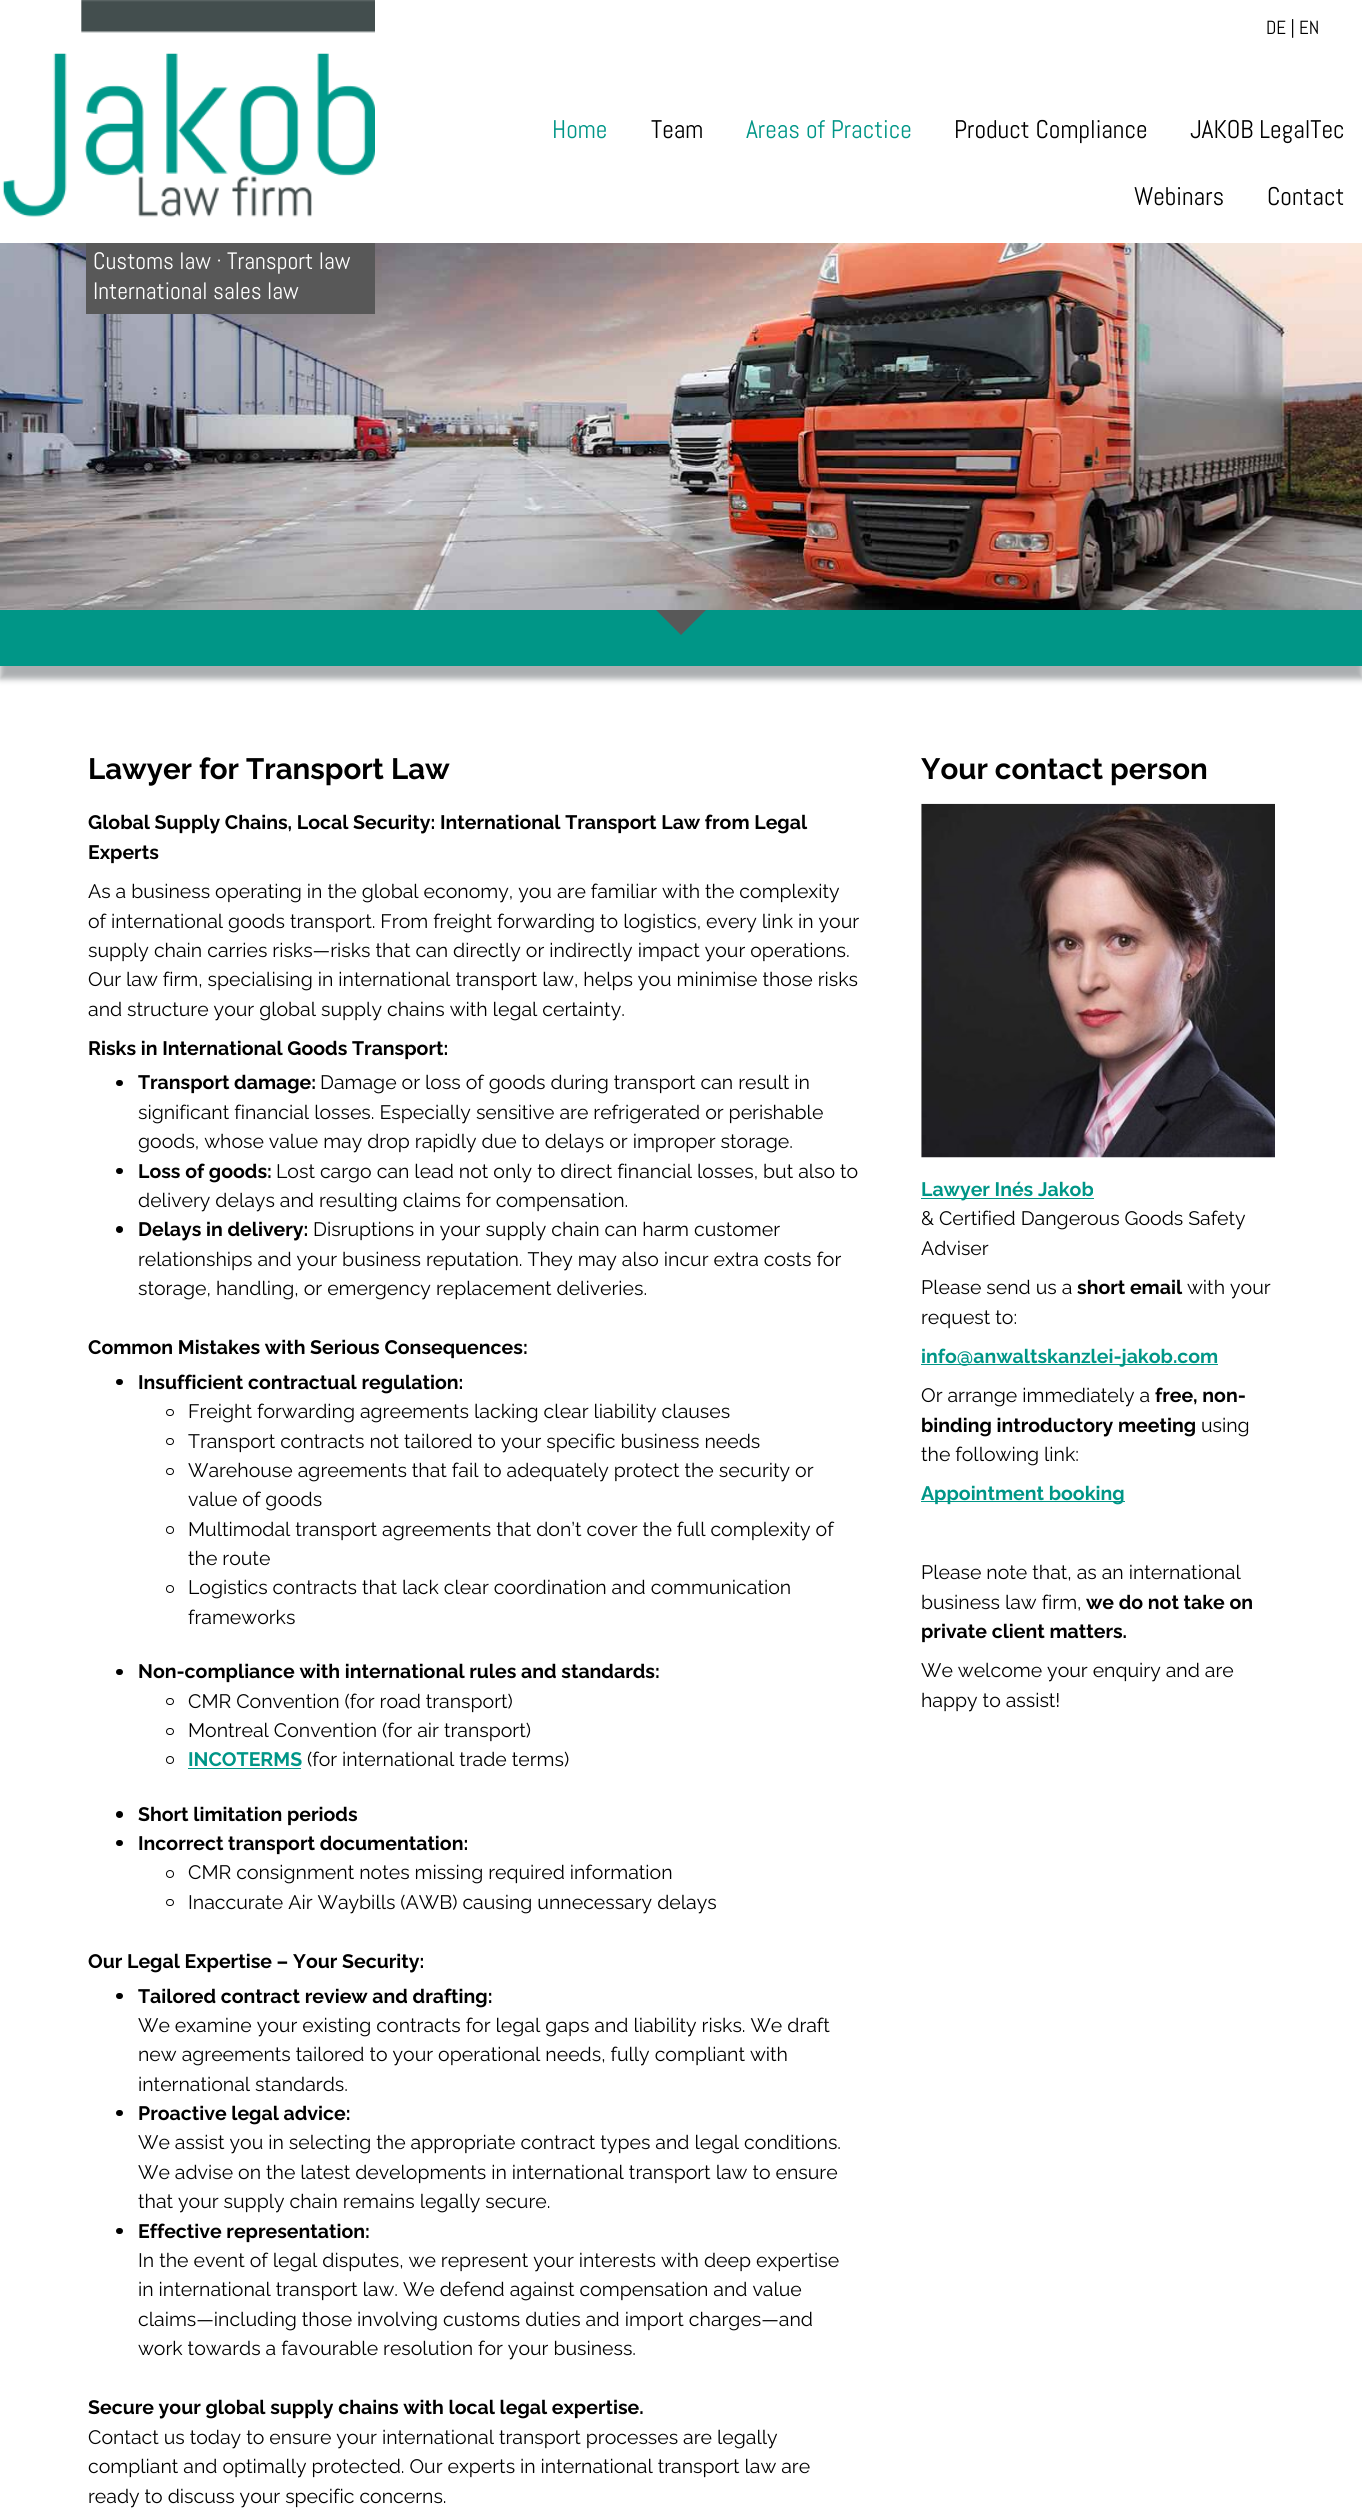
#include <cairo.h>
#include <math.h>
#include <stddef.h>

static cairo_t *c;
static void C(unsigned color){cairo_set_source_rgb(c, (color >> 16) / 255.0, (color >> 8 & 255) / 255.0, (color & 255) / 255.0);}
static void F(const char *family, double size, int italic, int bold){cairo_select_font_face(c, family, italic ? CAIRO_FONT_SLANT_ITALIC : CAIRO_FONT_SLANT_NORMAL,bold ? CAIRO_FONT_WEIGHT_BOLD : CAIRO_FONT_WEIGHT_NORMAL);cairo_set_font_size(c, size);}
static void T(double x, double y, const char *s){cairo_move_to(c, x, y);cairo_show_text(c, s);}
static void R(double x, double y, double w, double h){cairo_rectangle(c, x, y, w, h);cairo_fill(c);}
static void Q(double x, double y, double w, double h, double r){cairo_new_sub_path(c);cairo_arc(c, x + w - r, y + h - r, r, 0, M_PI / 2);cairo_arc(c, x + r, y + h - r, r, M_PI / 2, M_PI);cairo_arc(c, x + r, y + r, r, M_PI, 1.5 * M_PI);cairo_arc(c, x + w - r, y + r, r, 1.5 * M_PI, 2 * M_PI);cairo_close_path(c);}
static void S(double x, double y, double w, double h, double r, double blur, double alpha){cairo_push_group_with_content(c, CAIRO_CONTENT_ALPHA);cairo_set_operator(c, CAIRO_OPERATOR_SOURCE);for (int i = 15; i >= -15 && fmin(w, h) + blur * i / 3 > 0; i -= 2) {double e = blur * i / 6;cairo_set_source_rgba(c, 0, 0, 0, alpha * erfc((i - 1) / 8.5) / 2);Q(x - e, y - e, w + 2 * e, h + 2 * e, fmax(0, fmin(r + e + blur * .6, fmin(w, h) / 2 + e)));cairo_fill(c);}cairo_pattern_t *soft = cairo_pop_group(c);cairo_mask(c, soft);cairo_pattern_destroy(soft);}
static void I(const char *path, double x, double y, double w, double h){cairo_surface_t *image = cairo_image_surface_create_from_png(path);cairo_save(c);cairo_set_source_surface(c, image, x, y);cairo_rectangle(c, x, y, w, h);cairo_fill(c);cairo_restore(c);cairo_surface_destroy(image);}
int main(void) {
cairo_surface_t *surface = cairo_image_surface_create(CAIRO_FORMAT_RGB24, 1362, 2510);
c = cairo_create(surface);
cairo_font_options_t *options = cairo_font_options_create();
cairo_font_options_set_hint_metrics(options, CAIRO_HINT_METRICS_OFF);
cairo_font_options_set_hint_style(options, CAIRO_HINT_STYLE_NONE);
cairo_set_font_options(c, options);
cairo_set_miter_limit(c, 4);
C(0xffffff);
cairo_paint(c);
F("Abel",19,0,0);
C(0x000000);
T(1266,34,"DE | EN");
F("Abel",25.5,0,0);
C(0x009687);
T(552,138,"Home");
C(0x000000);
T(651,138,"Team");
C(0x009687);
T(746,138,"Areas of Practice");
C(0x000000);
T(954,138,"Product Compliance");
T(1190,138,"JAKOB LegalTec");
T(1134,205,"Webinars");
T(1267,205,"Contact");
I("1.png",2,0,373,217);
C(0xabaeb0);
S(0,255,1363,424,0,3,1);
I("2.png",0,243,1362,367);
C(0x585858);
R(86,243,289,71);
F("Abel",23.75,0,0);
C(0xffffff);
T(93,269,"Customs law · Transport law");
T(93,299,"International sales law");
C(0x009687);
R(0,610,1362,56);
C(0x585858);
cairo_new_path(c);
cairo_move_to(c,656,610);
cairo_line_to(c,706,610);
cairo_line_to(c,681,635);
cairo_close_path(c);
cairo_fill(c);
F("Raleway Thin",29.4,0,0);
C(0x000000);
T(88,779,"Lawyer for Transport Law");
F("Raleway Thin",19.5,0,0);
T(88,829,"Global Supply Chains, Local Security: International Transport Law from Legal");
T(88,859,"Experts");
F("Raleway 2 Thin",19.5,0,0);
T(88,898,"As a business operating in the global economy, you are familiar with the complexity");
T(88,928,"of international goods transport. From freight forwarding to logistics, every link in your");
T(88,957,"supply chain carries risks—risks that can directly or indirectly impact your operations.");
T(88,986,"Our law firm, specialising in international transport law, helps you minimise those risks");
T(88,1016,"and structure your global supply chains with legal certainty.");
F("Raleway Thin",19.5,0,0);
T(88,1055,"Risks in International Goods Transport:");
Q(116,1080,7,6,3);
cairo_fill(c);
T(138,1089,"Transport damage:");
F("Raleway 2 Thin",19.5,0,0);
T(320,1089,"Damage or loss of goods during transport can result in");
T(138,1119,"significant financial losses. Especially sensitive are refrigerated or perishable");
T(138,1148,"goods, whose value may drop rapidly due to delays or improper storage.");
Q(116,1168,7,6,3);
cairo_fill(c);
F("Raleway Thin",19.5,0,0);
T(138,1178,"Loss of goods:");
F("Raleway 2 Thin",19.5,0,0);
T(276,1178,"Lost cargo can lead not only to direct financial losses, but also to");
T(138,1207,"delivery delays and resulting claims for compensation.");
cairo_new_path(c);
cairo_arc(c,119.5,1229.5,3.5,0,2 * M_PI);
cairo_fill(c);
F("Raleway Thin",19.5,0,0);
T(138,1236,"Delays in delivery:");
F("Raleway 2 Thin",19.5,0,0);
T(313,1236,"Disruptions in your supply chain can harm customer");
T(138,1266,"relationships and your business reputation. They may also incur extra costs for");
T(138,1295,"storage, handling, or emergency replacement deliveries.");
F("Raleway Thin",19.5,0,0);
T(88,1354,"Common Mistakes with Serious Consequences:");
Q(116,1379,7,6,3);
cairo_fill(c);
T(138,1389,"Insufficient contractual regulation:");
Q(166.5,1409.5,7,6,3);
cairo_set_line_width(c,1);
cairo_stroke(c);
F("Raleway 2 Thin",19.5,0,0);
T(188,1418,"Freight forwarding agreements lacking clear liability clauses");
Q(166.5,1438.5,7,6,3);
cairo_stroke(c);
T(188,1448,"Transport contracts not tailored to your specific business needs");
Q(166.5,1468.5,7,6,3);
cairo_stroke(c);
T(188,1477,"Warehouse agreements that fail to adequately protect the security or");
T(188,1506,"value of goods");
cairo_new_path(c);
cairo_arc(c,170,1530,3.5,0,2 * M_PI);
cairo_stroke(c);
T(188,1536,"Multimodal transport agreements that don’t cover the full complexity of");
T(188,1565,"the route");
cairo_new_path(c);
cairo_arc(c,170,1589,3.5,0,2 * M_PI);
cairo_stroke(c);
T(188,1594,"Logistics contracts that lack clear coordination and communication");
T(188,1624,"frameworks");
Q(116,1669,7,6,3);
cairo_fill(c);
F("Raleway Thin",19.5,0,0);
T(138,1678,"Non-compliance with international rules and standards:");
Q(166.5,1698.5,7,6,3);
cairo_stroke(c);
F("Raleway 2 Thin",19.5,0,0);
T(188,1708,"CMR Convention (for road transport)");
Q(166.5,1728.5,7,6,3);
cairo_stroke(c);
T(188,1737,"Montreal Convention (for air transport)");
cairo_new_path(c);
cairo_arc(c,170,1760,3.5,0,2 * M_PI);
cairo_stroke(c);
F("Raleway Thin",19.5,0,0);
C(0x009687);
T(188,1766,"INCOTERMS");
R(188,1768,113,1);
F("Raleway 2 Thin",19.5,0,0);
C(0x000000);
T(307,1766,"(for international trade terms)");
cairo_new_path(c);
cairo_arc(c,119.5,1814.5,3.5,0,2 * M_PI);
cairo_fill(c);
F("Raleway Thin",19.5,0,0);
T(138,1821,"Short limitation periods");
Q(116,1840,7,6,3);
cairo_fill(c);
T(138,1850,"Incorrect transport documentation:");
cairo_new_path(c);
cairo_arc(c,170,1874,3.5,0,2 * M_PI);
cairo_stroke(c);
F("Raleway 2 Thin",19.5,0,0);
T(188,1879,"CMR consignment notes missing required information");
Q(166.5,1899.5,7,6,3);
cairo_stroke(c);
T(188,1909,"Inaccurate Air Waybills (AWB) causing unnecessary delays");
F("Raleway Thin",19.5,0,0);
T(88,1968,"Our Legal Expertise – Your Security:");
Q(116,1993,7,6,3);
cairo_fill(c);
T(138,2003,"Tailored contract review and drafting:");
F("Raleway 2 Thin",19.5,0,0);
T(138,2032,"We examine your existing contracts for legal gaps and liability risks. We draft");
T(138,2061,"new agreements tailored to your operational needs, fully compliant with");
T(138,2091,"international standards.");
Q(116,2110,7,6,3);
cairo_fill(c);
F("Raleway Thin",19.5,0,0);
T(138,2120,"Proactive legal advice:");
F("Raleway 2 Thin",19.5,0,0);
T(138,2149,"We assist you in selecting the appropriate contract types and legal conditions.");
T(138,2179,"We advise on the latest developments in international transport law to ensure");
T(138,2208,"that your supply chain remains legally secure.");
Q(116,2228,7,6,3);
cairo_fill(c);
F("Raleway Thin",19.5,0,0);
T(138,2238,"Effective representation:");
F("Raleway 2 Thin",19.5,0,0);
T(138,2267,"In the event of legal disputes, we represent your interests with deep expertise");
T(138,2296,"in international transport law. We defend against compensation and value");
T(138,2326,"claims—including those involving customs duties and import charges—and");
T(138,2355,"work towards a favourable resolution for your business.");
F("Raleway Thin",19.5,0,0);
T(88,2414,"Secure your global supply chains with local legal expertise.");
F("Raleway 2 Thin",19.5,0,0);
T(88,2444,"Contact us today to ensure your international transport processes are legally");
T(88,2473,"compliant and optimally protected. Our experts in international transport law are");
T(88,2503,"ready to discuss your specific concerns.");
F("Raleway Thin",29.4,0,0);
T(921,779,"Your contact person");
I("3.png",921,803,354,355);
C(0x009687);
R(921,1198,173,1);
F("Raleway Thin",19.5,0,0);
T(921,1196,"Lawyer Inés Jakob");
F("Raleway 2 Thin",19.5,0,0);
C(0x000000);
T(921,1225,"& Certified Dangerous Goods Safety");
T(921,1255,"Adviser");
T(921,1294,"Please send us a");
F("Raleway Thin",19.5,0,0);
T(1077,1294,"short email");
F("Raleway 2 Thin",19.5,0,0);
T(1187,1294,"with your");
T(921,1324,"request to:");
C(0x009687);
R(921,1364,297,1);
F("Raleway Thin",19.5,0,0);
T(921,1363,"info@anwaltskanzlei-jakob.com");
F("Raleway 2 Thin",19.5,0,0);
C(0x000000);
T(921,1402,"Or arrange immediately a");
F("Raleway Thin",19.5,0,0);
T(1155,1402,"free, non-");
T(921,1432,"binding introductory meeting");
F("Raleway 2 Thin",19.5,0,0);
T(1201,1432,"using");
T(921,1461,"the following link:");
C(0x009687);
R(921,1501,204,1);
F("Raleway Thin",19.5,0,0);
T(921,1500,"Appointment booking");
F("Raleway 2 Thin",19.5,0,0);
C(0x000000);
T(921,1579,"Please note that, as an international");
T(921,1609,"business law firm,");
F("Raleway Thin",19.5,0,0);
T(1086,1609,"we do not take on");
T(921,1638,"private client matters.");
F("Raleway 2 Thin",19.5,0,0);
T(921,1677,"We welcome your enquiry and are");
T(921,1707,"happy to assist!");
cairo_surface_write_to_png(surface, "o.png");
cairo_font_options_destroy(options);
cairo_destroy(c);
cairo_surface_destroy(surface);
return 0;
}
